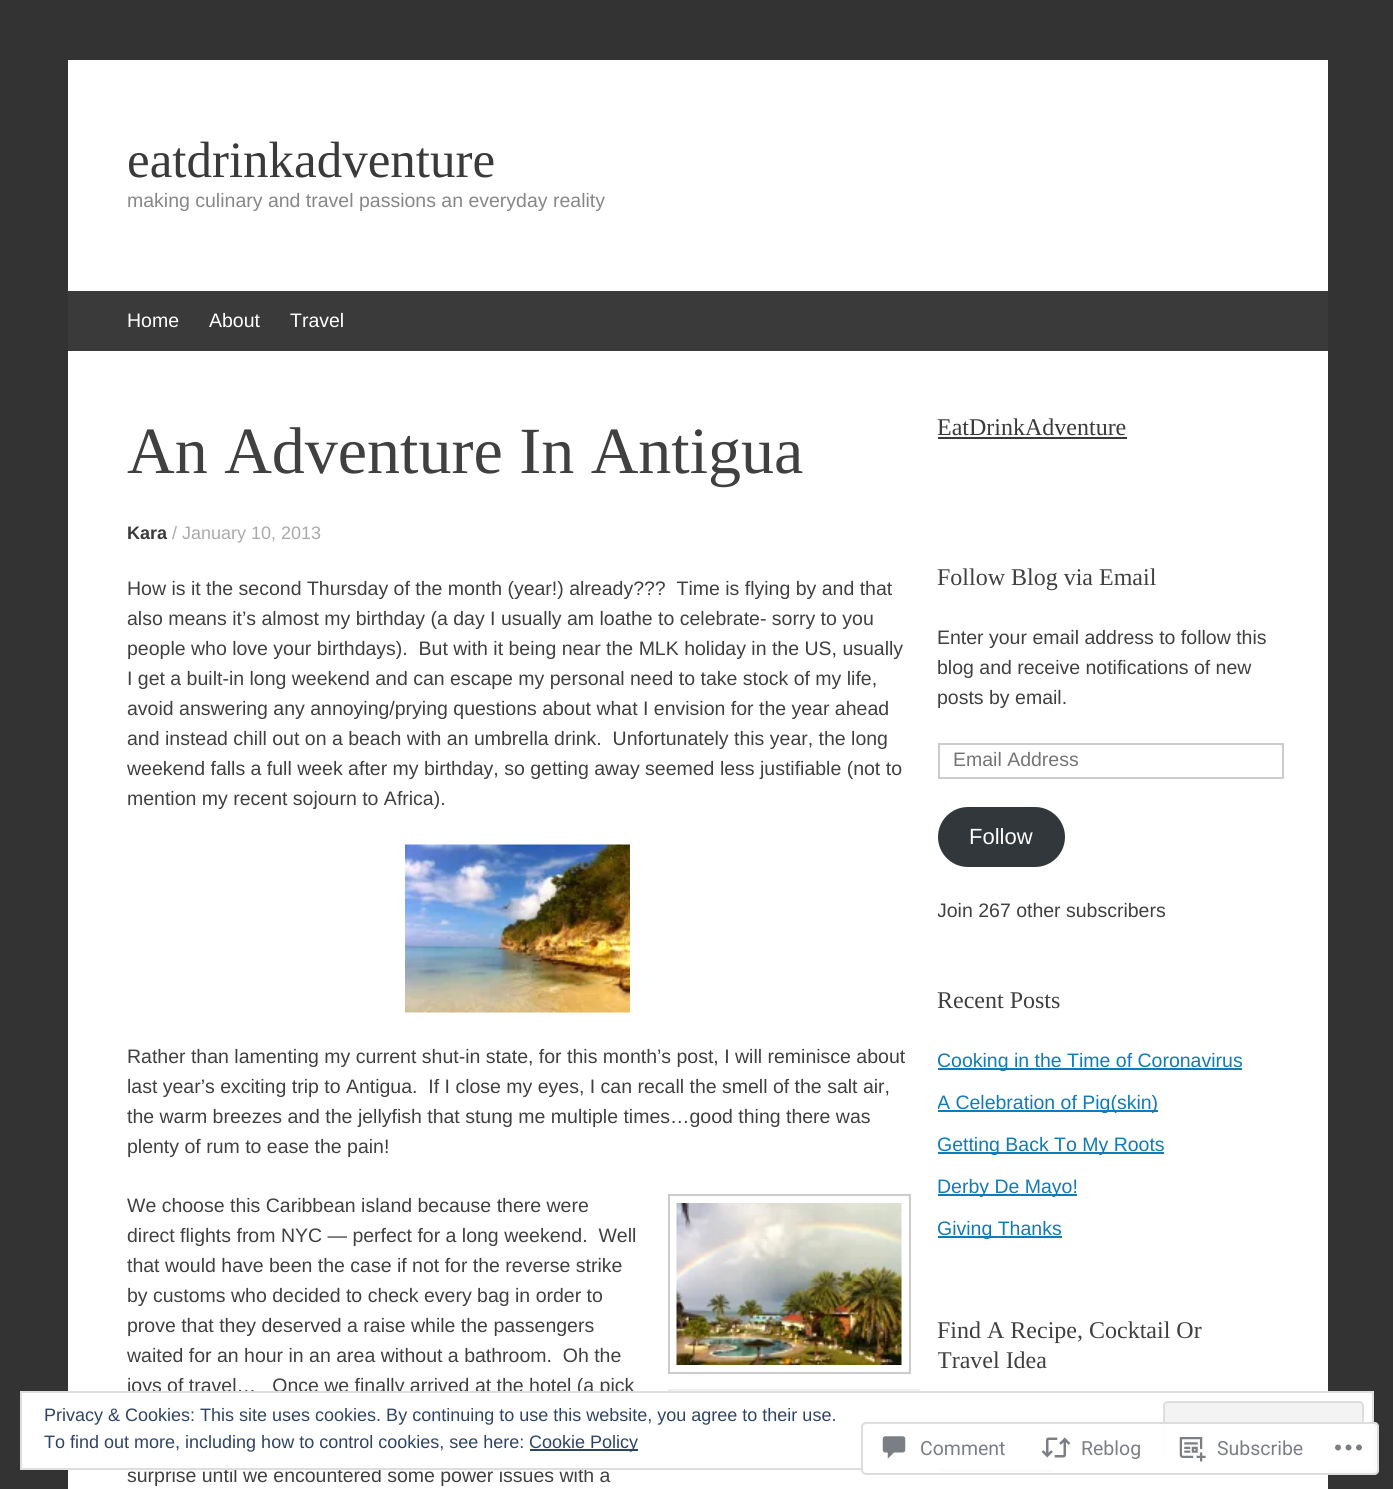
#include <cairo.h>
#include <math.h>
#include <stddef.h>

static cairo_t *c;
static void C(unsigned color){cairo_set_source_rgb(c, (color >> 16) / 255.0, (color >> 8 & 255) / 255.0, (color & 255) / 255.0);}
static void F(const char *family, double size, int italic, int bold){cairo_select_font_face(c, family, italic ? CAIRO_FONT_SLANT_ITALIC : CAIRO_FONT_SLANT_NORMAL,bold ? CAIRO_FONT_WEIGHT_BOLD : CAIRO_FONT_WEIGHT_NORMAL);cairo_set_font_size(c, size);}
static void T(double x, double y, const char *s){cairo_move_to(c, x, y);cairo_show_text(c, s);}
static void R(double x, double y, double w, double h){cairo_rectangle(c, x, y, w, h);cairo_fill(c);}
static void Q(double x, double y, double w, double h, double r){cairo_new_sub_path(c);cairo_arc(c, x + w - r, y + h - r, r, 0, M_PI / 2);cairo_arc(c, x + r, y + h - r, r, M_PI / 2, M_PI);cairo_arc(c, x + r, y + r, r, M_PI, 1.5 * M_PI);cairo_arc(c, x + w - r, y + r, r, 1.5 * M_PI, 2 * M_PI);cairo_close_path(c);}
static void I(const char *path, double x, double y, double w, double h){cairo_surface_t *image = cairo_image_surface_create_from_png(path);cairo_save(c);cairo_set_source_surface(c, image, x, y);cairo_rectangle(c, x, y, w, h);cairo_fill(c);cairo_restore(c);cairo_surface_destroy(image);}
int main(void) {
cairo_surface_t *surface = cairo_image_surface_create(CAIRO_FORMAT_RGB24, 1393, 1489);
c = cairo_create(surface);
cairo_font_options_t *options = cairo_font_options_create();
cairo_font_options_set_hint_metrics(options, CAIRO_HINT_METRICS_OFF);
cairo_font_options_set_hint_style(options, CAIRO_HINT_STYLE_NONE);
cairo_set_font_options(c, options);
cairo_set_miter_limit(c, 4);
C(0x333333);
cairo_paint(c);
C(0xffffff);
R(68,60,1260,1429);
F("Liberation Serif",51,0,0);
C(0x3a3a3a);
T(127,177,"eatdrinkadventure");
F("Liberation Sans",19.5,0,0);
C(0x878787);
T(127,207,"making culinary and travel passions an everyday reality");
C(0x3a3a3a);
R(68,291,1260,60);
C(0xffffff);
T(127,327,"Home");
T(209,327,"About");
T(290,327,"Travel");
F("Liberation Serif",66,0,0);
C(0x404040);
T(127,473,"An Adventure In Antigua");
F("Liberation Sans",18,0,1);
C(0x3a3a3a);
T(127,539,"Kara");
F("Liberation Sans",18,0,0);
C(0xaaaaaa);
T(172,539,"/ January 10, 2013");
F("Liberation Sans",19.5,0,0);
C(0x404040);
T(127,595,"How is it the second Thursday of the month (year!) already?\077?  Time is flying by and that");
T(127,625,"also means it’s almost my birthday (a day I usually am loathe to celebrate- sorry to you");
T(127,655,"people who love your birthdays).  But with it being near the MLK holiday in the US, usually");
T(127,685,"I get a built-in long weekend and can escape my personal need to take stock of my life,");
T(127,715,"avoid answering any annoying/prying questions about what I envision for the year ahead");
T(127,745,"and instead chill out on a beach with an umbrella drink.  Unfortunately this year, the long");
T(127,775,"weekend falls a full week after my birthday, so getting away seemed less justifiable (not to");
T(127,805,"mention my recent sojourn to Africa).");
I("1.png",405,844,225,169);
T(127,1063,"Rather than lamenting my current shut-in state, for this month’s post, I will reminisce about");
T(127,1093,"last year’s exciting trip to Antigua.  If I close my eyes, I can recall the smell of the salt air,");
T(127,1123,"the warm breezes and the jellyfish that stung me multiple times…good thing there was");
T(127,1153,"plenty of rum to ease the pain!");
T(127,1212,"We choose this Caribbean island because there were");
T(127,1242,"direct flights from NYC — perfect for a long weekend.  Well");
T(127,1272,"that would have been the case if not for the reverse strike");
T(127,1302,"by customs who decided to check every bag in order to");
T(127,1332,"prove that they deserved a raise while the passengers");
T(127,1362,"waited for an hour in an area without a bathroom.  Oh the");
T(127,1392,"joys of travel…   Once we finally arrived at the hotel (a pick");
T(127,1482,"surprise until we encountered some power issues with a");
cairo_rectangle(c,669,1195,241,178);
C(0xcccccc);
cairo_stroke(c);
I("2.png",676,1203,226,162);
C(0xefefef);
R(668,1389,252,2);
F("Liberation Serif",24,0,0);
C(0x3a3a3a);
T(937,435,"EatDrinkAdventure");
R(938,437,189,2);
C(0x404040);
T(937,585,"Follow Blog via Email");
F("Liberation Sans",19.5,0,0);
T(937,644,"Enter your email address to follow this");
T(937,674,"blog and receive notifications of new");
T(937,704,"posts by email.");
cairo_rectangle(c,939,744,344,34);
C(0xcccccc);
cairo_stroke(c);
C(0x757575);
T(953,766,"Email Address");
C(0x32373c);
Q(938,807,127,60,30);
cairo_fill(c);
F("Liberation Sans",22,0,0);
C(0xffffff);
T(969,844,"Follow");
cairo_save(c);
cairo_rectangle(c,938,351,390,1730);
cairo_clip(c);
F("Liberation Sans",19.5,0,0);
C(0x404040);
T(937,917,"Join 267 other subscribers");
cairo_restore(c);
F("Liberation Serif",24,0,0);
C(0x404040);
T(937,1008,"Recent Posts");
C(0x117bb8);
R(938,1068,304,2);
cairo_save(c);
cairo_rectangle(c,938,351,390,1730);
cairo_clip(c);
F("Liberation Sans",19.5,0,0);
T(937,1067,"Cooking in the Time of Coronavirus");
cairo_restore(c);
R(938,1110,220,2);
cairo_save(c);
cairo_rectangle(c,938,351,390,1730);
cairo_clip(c);
F("Liberation Sans",19.5,0,0);
T(937,1109,"A Celebration of Pig(skin)");
cairo_restore(c);
R(938,1152,226,2);
cairo_save(c);
cairo_rectangle(c,938,351,390,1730);
cairo_clip(c);
F("Liberation Sans",19.5,0,0);
T(937,1151,"Getting Back To My Roots");
cairo_restore(c);
R(938,1194,139,2);
F("Liberation Sans",19.5,0,0);
T(937,1193,"Derby De Mayo!");
R(938,1236,124,2);
cairo_save(c);
cairo_rectangle(c,938,351,390,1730);
cairo_clip(c);
T(937,1235,"Giving Thanks");
cairo_restore(c);
F("Liberation Serif",24,0,0);
C(0x404040);
T(937,1338,"Find A Recipe, Cocktail Or");
cairo_save(c);
cairo_rectangle(c,938,351,390,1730);
cairo_clip(c);
T(937,1368,"Travel Idea");
cairo_restore(c);
C(0x117bb8);
R(938,1470,114,2);
C(0xffffff);
cairo_rectangle(c,21,1392,1352,77);
cairo_fill_preserve(c);
C(0xdedede);
cairo_stroke(c);
F("Liberation Sans",18,0,0);
C(0x2e4467);
T(44,1421,"Privacy & Cookies: This site uses cookies. By continuing to use this website, you agree to their use.");
C(0xf3f3f3);
Q(1164,1402,199,57,4);
cairo_fill_preserve(c);
C(0xdedede);
cairo_stroke(c);
C(0x2e4467);
T(44,1448,"To find out more, including how to control cookies, see here:");
R(530,1449,108,2);
T(529,1448,"Cookie Policy");
cairo_set_source_rgba(c,1,1,1,0.98);
Q(861,1422,518,53,5);
cairo_fill(c);
Q(862,1423,516,51,4);
cairo_set_source_rgba(c,0.863,0.863,0.871,0.98);
cairo_stroke(c);
I("3.png",882,1436,24,23);
F("Roboto",19.5,0,0);
C(0x7b7f85);
T(920,1455,"Comment");
I("4.png",1041,1437,30,21);
T(1081,1455,"Reblog");
I("5.png",1179,1437,27,25);
T(1217,1455,"Subscribe");
I("6.png",1335,1444,27,7);
cairo_surface_write_to_png(surface, "o.png");
cairo_font_options_destroy(options);
cairo_destroy(c);
cairo_surface_destroy(surface);
return 0;
}
